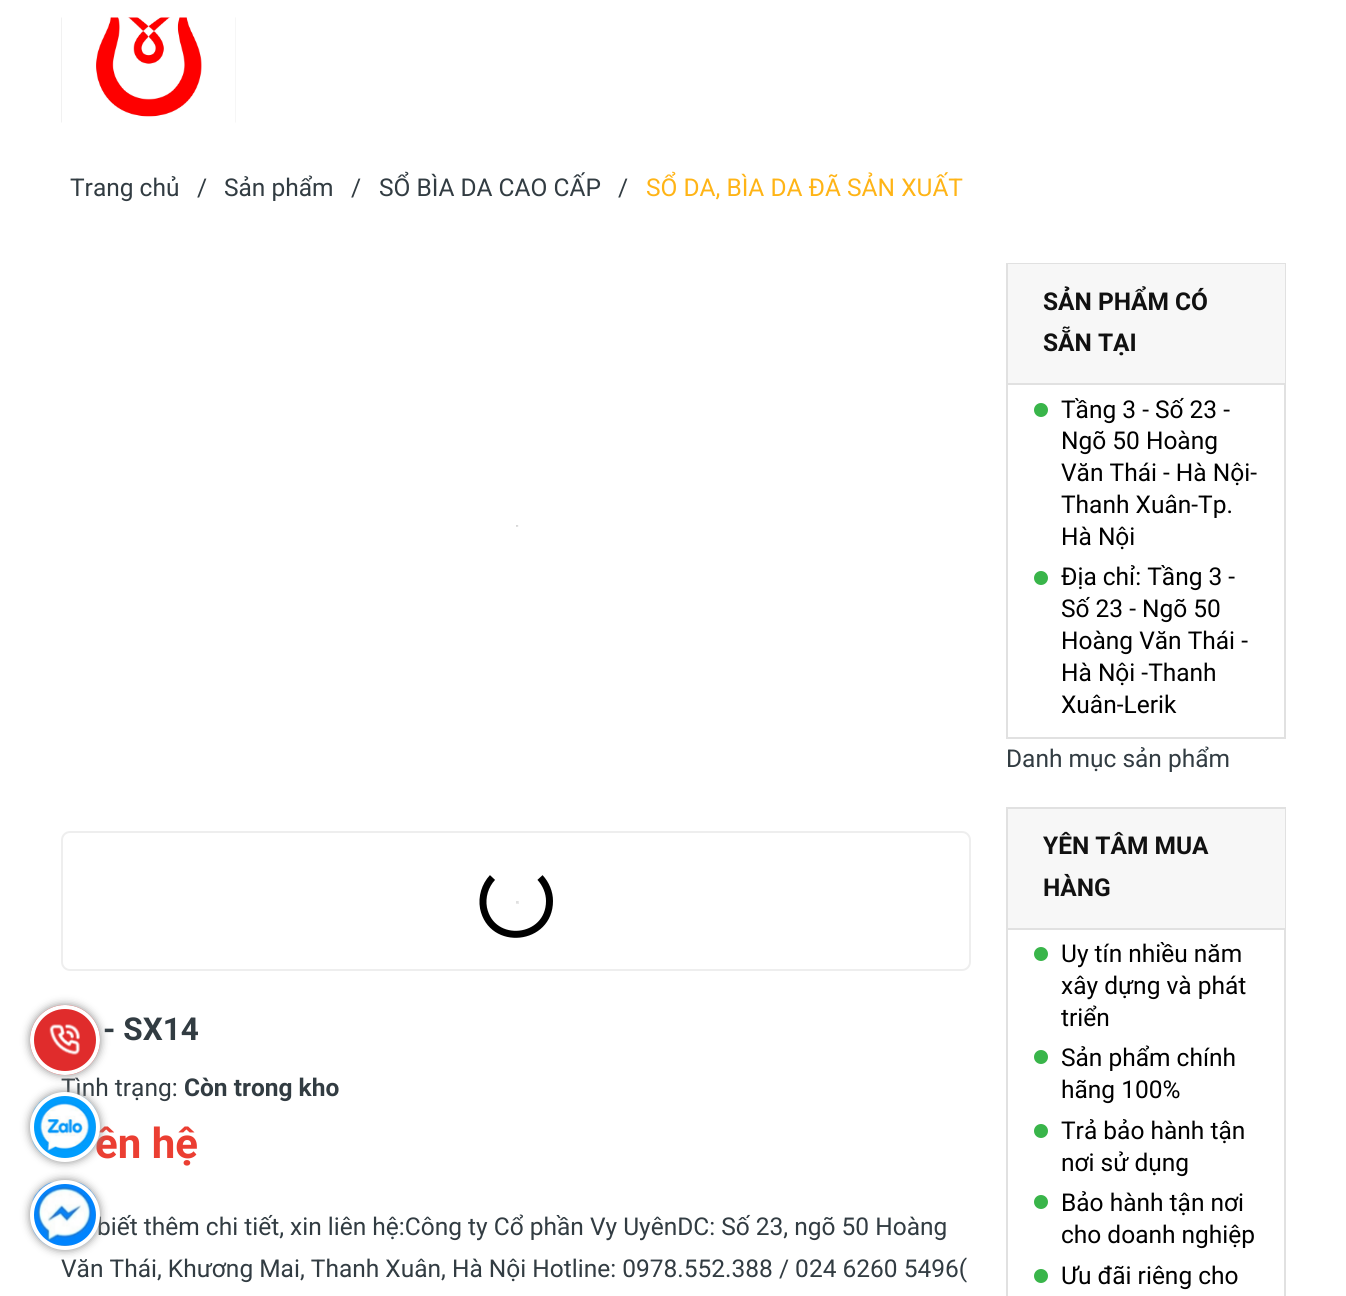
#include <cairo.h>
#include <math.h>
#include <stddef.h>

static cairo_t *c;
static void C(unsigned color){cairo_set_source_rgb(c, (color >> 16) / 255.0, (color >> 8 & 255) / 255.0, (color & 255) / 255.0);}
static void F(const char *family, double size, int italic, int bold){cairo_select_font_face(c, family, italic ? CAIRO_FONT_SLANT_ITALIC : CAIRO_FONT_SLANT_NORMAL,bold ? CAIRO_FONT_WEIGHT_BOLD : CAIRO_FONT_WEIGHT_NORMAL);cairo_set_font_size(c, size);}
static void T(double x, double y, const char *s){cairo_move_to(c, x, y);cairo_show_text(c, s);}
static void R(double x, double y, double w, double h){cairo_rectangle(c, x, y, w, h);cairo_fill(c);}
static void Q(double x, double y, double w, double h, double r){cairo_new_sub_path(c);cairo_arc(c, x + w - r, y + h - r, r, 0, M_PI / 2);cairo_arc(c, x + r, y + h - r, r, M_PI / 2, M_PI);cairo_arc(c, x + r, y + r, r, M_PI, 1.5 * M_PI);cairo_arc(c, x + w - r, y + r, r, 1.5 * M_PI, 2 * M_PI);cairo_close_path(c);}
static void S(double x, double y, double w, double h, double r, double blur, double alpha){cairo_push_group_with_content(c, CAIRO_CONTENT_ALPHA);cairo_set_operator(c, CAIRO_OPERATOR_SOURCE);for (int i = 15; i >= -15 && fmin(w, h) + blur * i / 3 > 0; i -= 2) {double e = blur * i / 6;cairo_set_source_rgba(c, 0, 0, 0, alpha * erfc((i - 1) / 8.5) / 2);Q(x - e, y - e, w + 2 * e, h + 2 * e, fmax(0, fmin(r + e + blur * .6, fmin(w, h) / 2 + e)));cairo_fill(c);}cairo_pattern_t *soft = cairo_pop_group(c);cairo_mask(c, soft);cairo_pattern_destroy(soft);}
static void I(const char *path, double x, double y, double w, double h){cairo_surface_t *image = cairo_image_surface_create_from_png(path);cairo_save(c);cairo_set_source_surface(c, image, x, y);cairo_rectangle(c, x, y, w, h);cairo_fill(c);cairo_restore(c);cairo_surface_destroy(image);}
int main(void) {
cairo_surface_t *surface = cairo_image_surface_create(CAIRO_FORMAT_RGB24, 1346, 1296);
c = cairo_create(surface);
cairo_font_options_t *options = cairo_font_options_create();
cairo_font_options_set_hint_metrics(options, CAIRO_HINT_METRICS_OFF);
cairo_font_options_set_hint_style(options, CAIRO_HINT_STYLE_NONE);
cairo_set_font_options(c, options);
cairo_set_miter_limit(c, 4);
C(0xffffff);
cairo_paint(c);
C(0xe9e9e9);
R(516,901,3,3);
I("1.png",61,17,175,106);
F("Roboto",24.5,0,0);
C(0x323c42);
T(70,196,"Trang chủ");
T(197,196,"/");
T(224,196,"Sản phẩm");
T(351,196,"/");
T(379,196,"SỔ BÌA DA CAO CẤP");
T(618,196,"/");
C(0xffb416);
T(646,196,"SỔ DA, BÌA DA ĐÃ SẢN XUẤT");
C(0xebebeb);
cairo_new_path(c);
cairo_arc(c,517,526,1,0,2 * M_PI);
cairo_fill(c);
I("2.png",516,525,3,2);
Q(62,832,908,138,8);
C(0xeeeeee);
cairo_stroke(c);
C(0xdddddd);
cairo_arc(c,517,902,1,0,2 * M_PI);
cairo_fill(c);
cairo_new_path(c);
cairo_move_to(c,540,877.5);
cairo_curve_to(c,546,884,549.5,892.5,549.5,901);
cairo_curve_to(c,549.5,941,491.5,947,483.5,908);
cairo_curve_to(c,481.5,897,485,885.5,492.5,877.5);
C(0x000000);
cairo_set_line_width(c,7);
cairo_stroke(c);
F("Roboto",31.5,0,1);
C(0x323c42);
T(103,1040,"- SX14");
F("Roboto",24.5,0,0);
T(61,1096,"Tình trạng:");
F("Roboto",24.5,0,1);
T(184,1096,"Còn trong kho");
F("Roboto",42,0,1);
C(0xeb3e32);
T(95,1158,"ên hệ");
F("Roboto",24.5,0,0);
C(0x323c42);
T(97,1235,"biết thêm chi tiết, xin liên hệ:Công ty Cổ phần Vy UyênDC: Số 23, ngõ 50 Hoàng");
T(61,1277,"Văn Thái, Khương Mai, Thanh Xuân, Hà Nội Hotline: 0978.552.388 / 024 6260 5496(");
cairo_rectangle(c,1007,264,278,474);
C(0xe1e1e1);
cairo_set_line_width(c,2);
cairo_stroke(c);
C(0xf7f7f7);
R(1008,264,277,119);
C(0xe1e1e1);
R(1008,383,277,2);
F("Roboto",24.5,0,1);
C(0x111111);
T(1043,310,"SẢN PHẨM CÓ");
T(1043,351,"SẴN TẠI");
C(0x39b54a);
cairo_new_path(c);
cairo_arc(c,1041,410,7,0,2 * M_PI);
cairo_fill(c);
F("Roboto",24.5,0,0);
C(0x000000);
T(1061,418,"Tầng 3 - Số 23 -");
T(1061,449,"Ngõ 50 Hoàng");
T(1061,481,"Văn Thái - Hà Nội-");
T(1061,513,"Thanh Xuân-Tp.");
T(1061,545,"Hà Nội");
C(0x39b54a);
cairo_new_path(c);
cairo_arc(c,1041,578,7,0,2 * M_PI);
cairo_fill(c);
C(0x000000);
T(1061,585,"Địa chỉ: Tầng 3 -");
T(1061,617,"Số 23 - Ngõ 50");
T(1061,649,"Hoàng Văn Thái -");
T(1061,681,"Hà Nội -Thanh");
T(1061,713,"Xuân-Lerik");
C(0x323c42);
T(1006,767,"Danh mục sản phẩm");
cairo_rectangle(c,1007,808,278,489);
C(0xe1e1e1);
cairo_stroke(c);
C(0xf7f7f7);
R(1008,809,277,119);
C(0xe1e1e1);
R(1008,928,277,2);
F("Roboto",24.5,0,1);
C(0x111111);
T(1043,854,"YÊN TÂM MUA");
T(1043,896,"HÀNG");
C(0x39b54a);
cairo_new_path(c);
cairo_arc(c,1041,954,7,0,2 * M_PI);
cairo_fill(c);
F("Roboto",24.5,0,0);
C(0x000000);
T(1061,962,"Uy tín nhiều năm");
T(1061,994,"xây dựng và phát");
T(1061,1026,"triển");
C(0x39b54a);
cairo_new_path(c);
cairo_arc(c,1041,1057,7,0,2 * M_PI);
cairo_fill(c);
C(0x000000);
T(1061,1066,"Sản phẩm chính");
T(1061,1098,"hãng 100%");
C(0x39b54a);
cairo_new_path(c);
cairo_arc(c,1041,1131,7,0,2 * M_PI);
cairo_fill(c);
C(0x000000);
T(1061,1139,"Trả bảo hành tận");
T(1061,1171,"nơi sử dụng");
C(0x39b54a);
cairo_new_path(c);
cairo_arc(c,1041,1202,7,0,2 * M_PI);
cairo_fill(c);
C(0x000000);
T(1061,1211,"Bảo hành tận nơi");
T(1061,1243,"cho doanh nghiệp");
C(0x39b54a);
cairo_new_path(c);
cairo_arc(c,1041,1276,7,0,2 * M_PI);
cairo_fill(c);
C(0x000000);
T(1061,1284,"Ưu đãi riêng cho");
C(0x888888);
S(30,1005,70,70,35,4.5,1);
C(0xe02c2c);
cairo_arc(c,65,1040,35,0,2 * M_PI);
cairo_fill(c);
I("3.png",49,1024,31,31);
cairo_arc(c,65,1040,33,0,2 * M_PI);
C(0xffffff);
cairo_set_line_width(c,4);
cairo_stroke(c);
C(0x888888);
S(30,1092,70,70,35,4.5,1);
I("4.png",32,1095,65,64);
cairo_arc(c,65,1127,33,0,2 * M_PI);
C(0xffffff);
cairo_stroke(c);
C(0x888888);
S(30,1180,70,70,35,4.5,1);
I("5.png",32,1182,65,65);
cairo_arc(c,65,1215,33,0,2 * M_PI);
C(0xffffff);
cairo_stroke(c);
cairo_surface_write_to_png(surface, "o.png");
cairo_font_options_destroy(options);
cairo_destroy(c);
cairo_surface_destroy(surface);
return 0;
}
